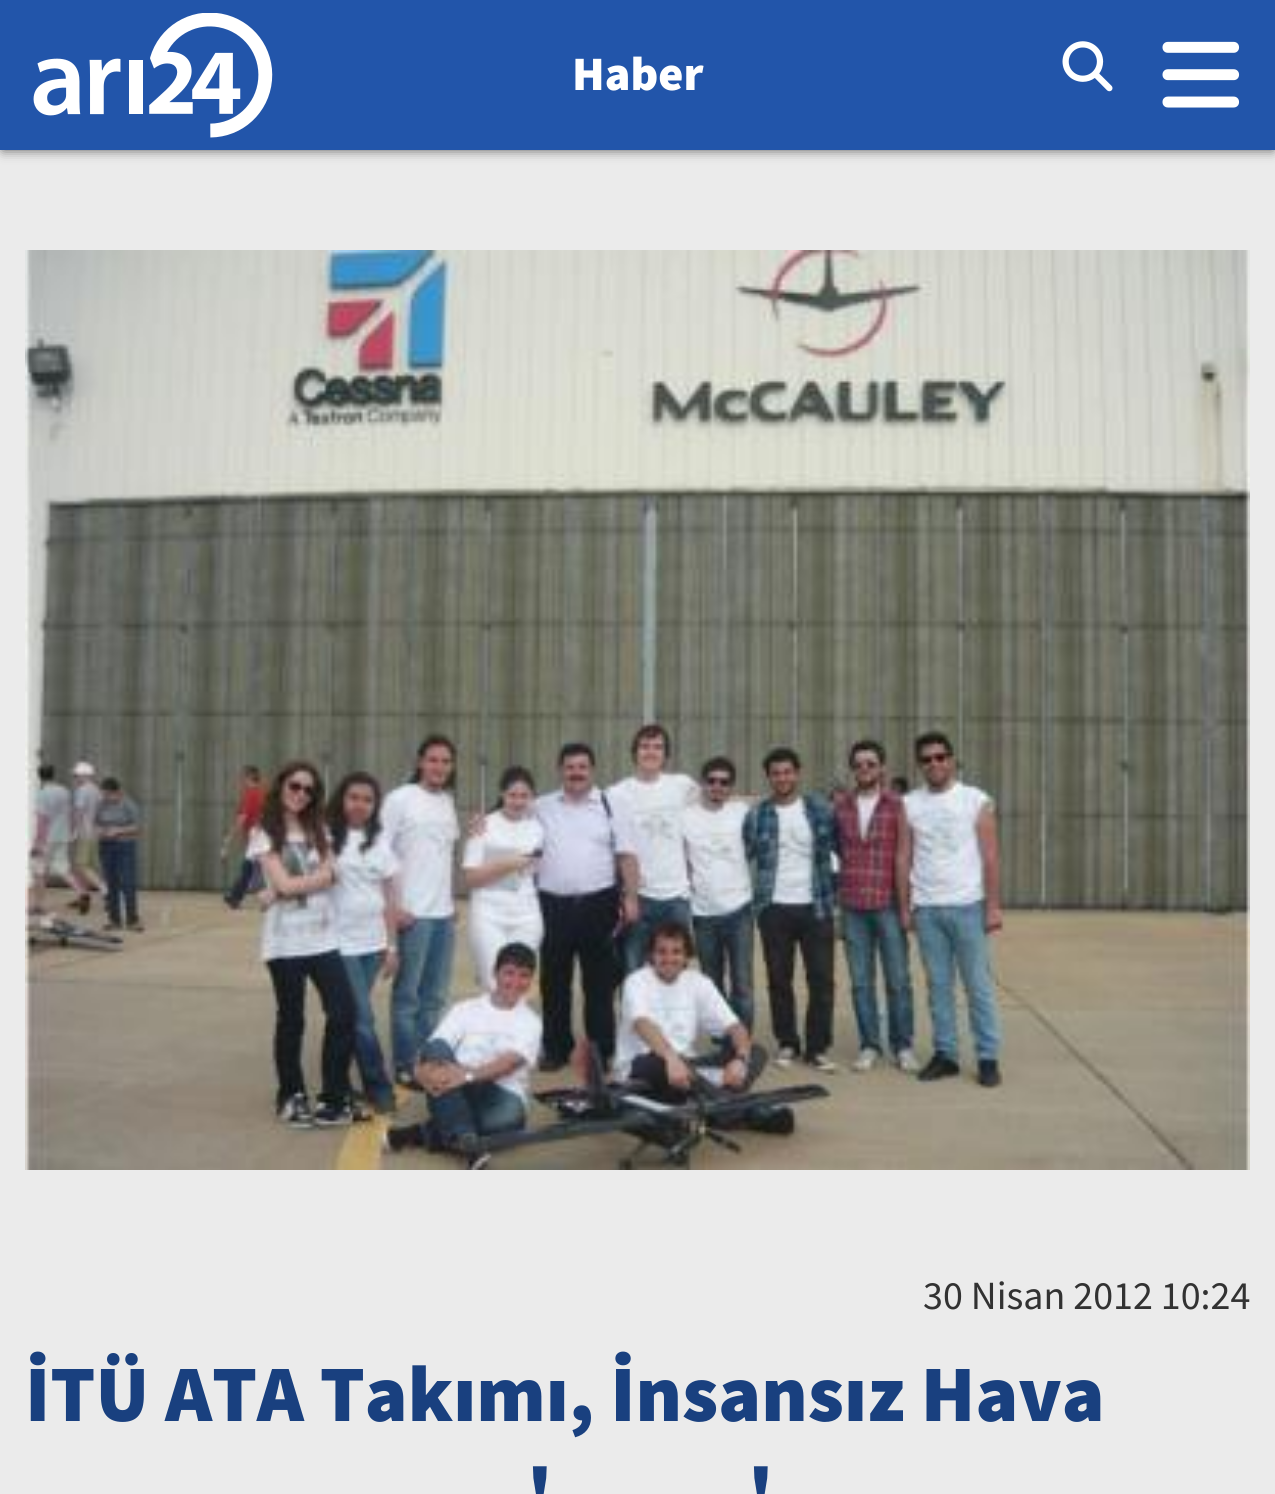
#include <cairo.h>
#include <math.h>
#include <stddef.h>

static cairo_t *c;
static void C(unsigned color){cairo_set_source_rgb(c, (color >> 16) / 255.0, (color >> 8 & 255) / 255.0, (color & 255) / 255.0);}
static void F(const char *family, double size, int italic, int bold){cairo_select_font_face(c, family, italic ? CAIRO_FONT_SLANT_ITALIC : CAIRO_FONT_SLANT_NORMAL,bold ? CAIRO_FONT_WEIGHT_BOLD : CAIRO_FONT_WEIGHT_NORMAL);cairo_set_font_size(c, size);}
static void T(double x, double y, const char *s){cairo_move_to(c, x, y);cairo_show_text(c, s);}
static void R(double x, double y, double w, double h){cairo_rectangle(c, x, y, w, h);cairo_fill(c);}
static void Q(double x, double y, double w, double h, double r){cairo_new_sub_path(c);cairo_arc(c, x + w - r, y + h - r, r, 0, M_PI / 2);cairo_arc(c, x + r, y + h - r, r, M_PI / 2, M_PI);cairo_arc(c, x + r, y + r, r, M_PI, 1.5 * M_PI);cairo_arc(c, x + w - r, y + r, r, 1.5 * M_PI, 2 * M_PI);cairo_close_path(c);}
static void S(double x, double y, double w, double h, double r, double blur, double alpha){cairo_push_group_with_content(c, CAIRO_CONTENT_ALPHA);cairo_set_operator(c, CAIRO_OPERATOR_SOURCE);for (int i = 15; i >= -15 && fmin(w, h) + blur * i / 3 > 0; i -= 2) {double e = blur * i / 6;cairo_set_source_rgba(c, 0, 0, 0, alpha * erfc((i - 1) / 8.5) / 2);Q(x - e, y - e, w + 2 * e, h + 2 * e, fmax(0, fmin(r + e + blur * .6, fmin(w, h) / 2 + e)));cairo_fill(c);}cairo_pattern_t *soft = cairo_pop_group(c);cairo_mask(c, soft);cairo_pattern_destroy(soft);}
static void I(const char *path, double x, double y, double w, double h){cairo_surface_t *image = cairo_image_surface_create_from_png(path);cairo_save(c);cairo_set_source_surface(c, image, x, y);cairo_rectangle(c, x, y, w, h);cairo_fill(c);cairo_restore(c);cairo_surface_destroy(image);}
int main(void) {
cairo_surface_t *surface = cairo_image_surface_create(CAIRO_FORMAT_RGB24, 1275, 1494);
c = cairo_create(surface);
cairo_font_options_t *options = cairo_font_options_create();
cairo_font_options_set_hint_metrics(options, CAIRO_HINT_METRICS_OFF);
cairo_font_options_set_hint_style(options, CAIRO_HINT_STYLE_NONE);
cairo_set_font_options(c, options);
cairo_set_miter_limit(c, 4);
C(0xebebeb);
cairo_paint(c);
C(0x000000);
S(3,5,1270,145,0,6,.6);
C(0x2255aa);
R(0,0,1275,150);
I("1.png",33,13,240,125);
I("2.png",1062,41,51,51);
I("3.png",1162,41,78,67);
F("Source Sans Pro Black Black",48,0,0);
C(0xffffff);
T(572,90,"Haber");
I("4.png",25,250,1225,920);
F("Source Sans Pro",40,0,0);
C(0x323232);
T(923,1309,"30 Nisan 2012 10:24");
F("Source Sans Pro Black Black",80,0,0);
C(0x19407f);
T(25,1421,"İTÜ ATA Takımı, İnsansız Hava");
T(527,1521,"'");
T(748,1521,"'");
cairo_surface_write_to_png(surface, "o.png");
cairo_font_options_destroy(options);
cairo_destroy(c);
cairo_surface_destroy(surface);
return 0;
}
